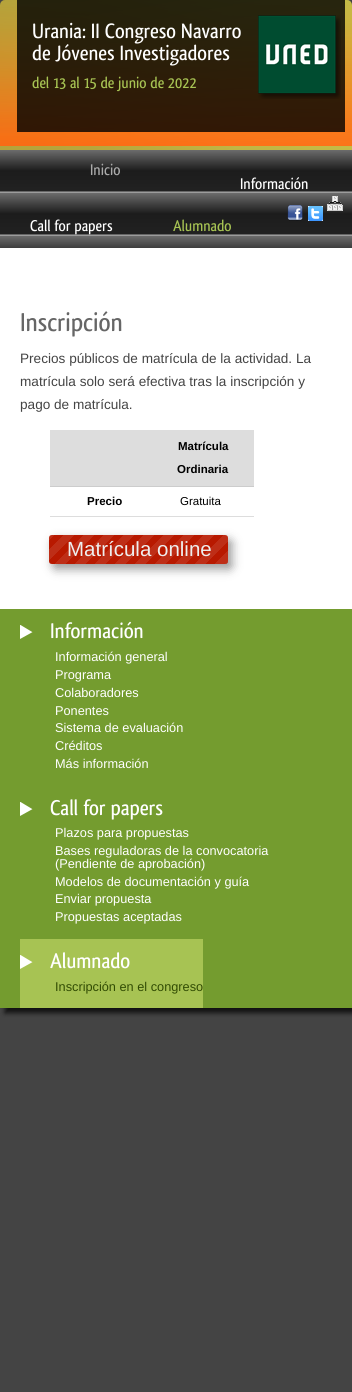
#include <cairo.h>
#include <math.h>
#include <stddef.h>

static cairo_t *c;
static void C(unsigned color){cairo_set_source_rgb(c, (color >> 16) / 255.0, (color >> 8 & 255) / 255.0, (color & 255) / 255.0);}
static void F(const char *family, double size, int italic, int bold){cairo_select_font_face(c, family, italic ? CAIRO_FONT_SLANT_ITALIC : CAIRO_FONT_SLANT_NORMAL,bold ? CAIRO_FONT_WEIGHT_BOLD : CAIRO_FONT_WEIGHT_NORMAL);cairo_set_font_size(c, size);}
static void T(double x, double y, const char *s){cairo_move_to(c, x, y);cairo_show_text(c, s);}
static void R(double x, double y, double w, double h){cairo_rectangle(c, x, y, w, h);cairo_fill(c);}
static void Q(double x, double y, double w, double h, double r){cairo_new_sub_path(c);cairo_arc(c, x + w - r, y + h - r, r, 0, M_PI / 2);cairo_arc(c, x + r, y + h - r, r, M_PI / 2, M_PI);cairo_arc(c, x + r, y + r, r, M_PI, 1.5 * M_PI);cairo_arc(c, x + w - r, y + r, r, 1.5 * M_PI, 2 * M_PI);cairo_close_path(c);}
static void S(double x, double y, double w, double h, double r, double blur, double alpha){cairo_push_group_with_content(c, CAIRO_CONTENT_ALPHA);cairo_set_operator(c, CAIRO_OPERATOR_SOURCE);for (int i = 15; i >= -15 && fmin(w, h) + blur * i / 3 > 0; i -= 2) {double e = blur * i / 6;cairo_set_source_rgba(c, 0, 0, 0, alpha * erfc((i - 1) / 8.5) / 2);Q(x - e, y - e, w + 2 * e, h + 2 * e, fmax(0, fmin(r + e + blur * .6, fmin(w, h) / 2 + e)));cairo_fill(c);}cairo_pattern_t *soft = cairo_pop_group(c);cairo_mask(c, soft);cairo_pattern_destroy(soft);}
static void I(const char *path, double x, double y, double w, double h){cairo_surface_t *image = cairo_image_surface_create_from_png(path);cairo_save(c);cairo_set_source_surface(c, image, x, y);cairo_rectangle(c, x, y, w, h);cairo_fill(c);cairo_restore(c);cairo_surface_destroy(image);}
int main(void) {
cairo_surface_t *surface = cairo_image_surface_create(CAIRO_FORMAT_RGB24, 352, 1392);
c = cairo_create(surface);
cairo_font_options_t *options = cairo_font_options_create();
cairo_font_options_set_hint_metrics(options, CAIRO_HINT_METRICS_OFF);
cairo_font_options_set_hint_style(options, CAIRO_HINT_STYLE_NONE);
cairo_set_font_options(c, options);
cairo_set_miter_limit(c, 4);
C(0x444444);
cairo_paint(c);
C(0x111111);
S(5,5,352,150,5,2.5,1);
I("1.png",0,0,352,150);
cairo_set_source_rgba(c,0,0,0,0.8);
R(17,0,328,132);
F("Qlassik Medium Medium",21.75,0,0);
C(0xffffff);
T(32,38,"Urania: II Congreso Navarro");
T(32,60,"de Jóvenes Investigadores");
F("Qlassik Medium Medium",16.25,0,0);
C(0xa7c353);
T(32,88,"del 13 al 15 de junio de 2022");
I("2.png",258,15,83,84);
C(0x222222);
R(0,150,352,98);
I("6.png",0,150,352,98);
I("3.png",327,196,16,15);
I("4.png",287,205,16,16);
I("5.png",308,206,15,15);
C(0xaaaaaa);
T(90,175,"Inicio");
C(0xffffff);
T(240,189,"Información");
T(30,231,"Call for papers");
C(0xa7c353);
T(173,231,"Alumnado");
C(0xffffff);
R(0,248,352,361);
cairo_save(c);
cairo_rectangle(c,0,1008,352,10);
cairo_clip(c);
C(0x111111);
S(5,253,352,760,0,2.5,1);
cairo_restore(c);
F("Qlassik Medium Medium",27,0,0);
C(0x666666);
T(20,331,"Inscripción");
F("Liberation Sans",13.6,0,0);
C(0x444444);
T(20,363,"Precios públicos de matrícula de la actividad. La");
T(20,386,"matrícula solo será efectiva tras la inscripción y");
T(20,409,"pago de matrícula.");
C(0xdddddd);
R(50,430,204,56);
F("Liberation Sans",11.5,0,1);
C(0x000000);
T(178,450,"Matrícula");
T(177,473,"Ordinaria");
C(0xcccccc);
R(50,486,204,1);
C(0xdddddd);
R(50,516,204,1);
C(0x000000);
T(87,505,"Precio");
F("Liberation Sans",11.5,0,0);
T(180,505,"Gratuita");
C(0x000000);
S(53,540,179,29,3,5,.4);
I("7.png",49,535,179,29);
F("Liberation Sans",20.5,0,0);
C(0xeeeeee);
T(67,556,"Matrícula online");
C(0x749c2f);
R(0,609,352,399);
I("8.png",20,625,13,14);
F("Qlassik Medium Medium",22.25,0,0);
C(0xffffff);
T(50,638,"Información");
F("Liberation Sans",12.75,0,0);
T(55,661,"Información general");
T(55,679,"Programa");
T(55,697,"Colaboradores");
T(55,715,"Ponentes");
T(55,732,"Sistema de evaluación");
T(55,750,"Créditos");
T(55,768,"Más información");
I("8.png",20,802,13,14);
F("Qlassik Medium Medium",22.25,0,0);
T(50,815,"Call for papers");
F("Liberation Sans",12.75,0,0);
T(55,837,"Plazos para propuestas");
T(55,855,"Bases reguladoras de la convocatoria");
T(55,868,"(Pendiente de aprobación)");
T(55,886,"Modelos de documentación y guía");
T(55,903,"Enviar propuesta");
T(55,921,"Propuestas aceptadas");
C(0xa7c353);
R(20,939,183,69);
I("9.png",20,955,13,14);
F("Qlassik Medium Medium",22.25,0,0);
C(0xffffff);
T(50,968,"Alumnado");
F("Liberation Sans",12.75,0,0);
C(0x314c03);
T(55,991,"Inscripción en el congreso");
cairo_surface_write_to_png(surface, "o.png");
cairo_font_options_destroy(options);
cairo_destroy(c);
cairo_surface_destroy(surface);
return 0;
}
